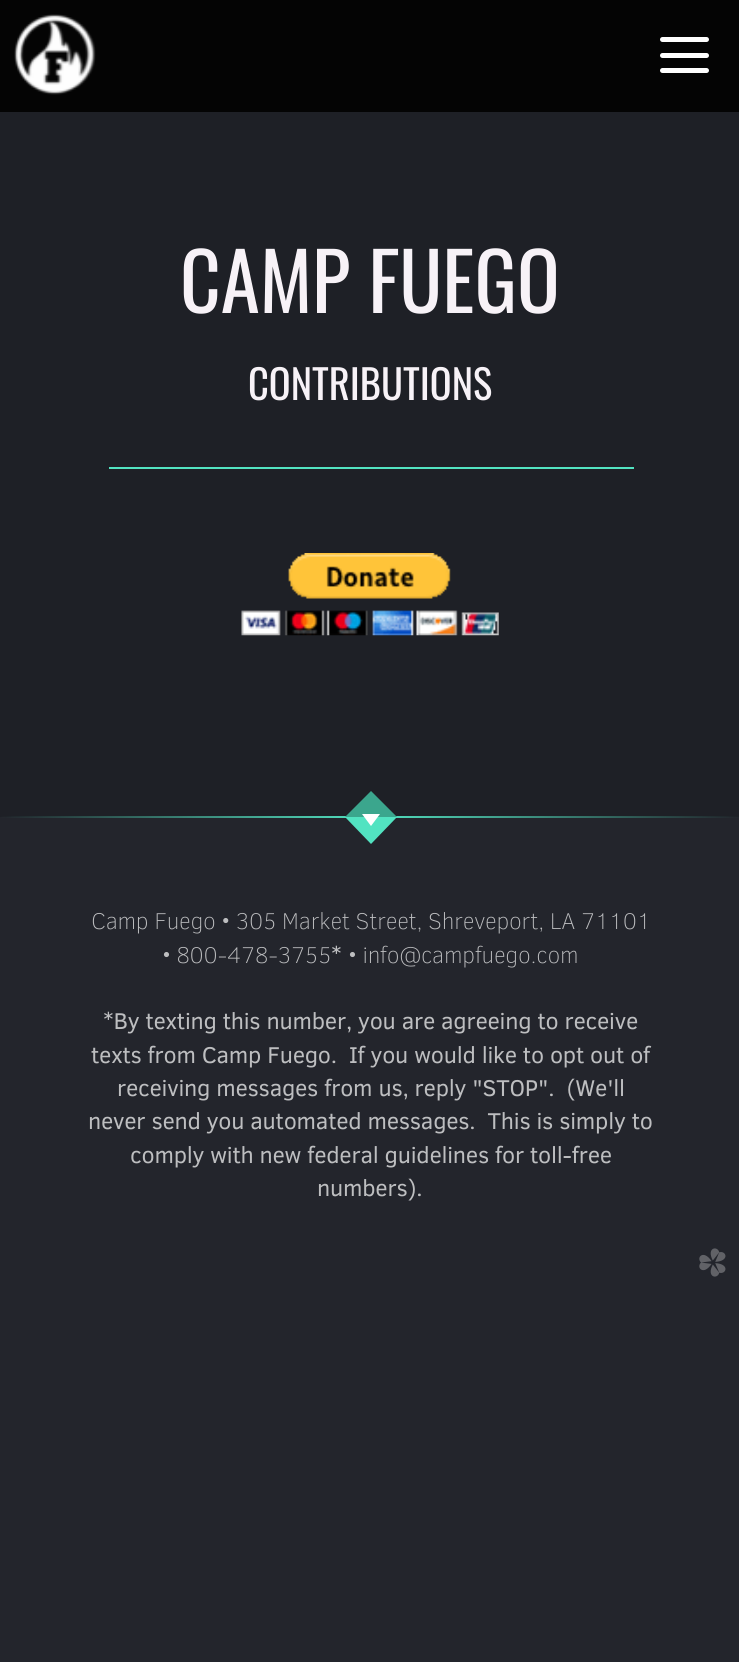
#include <cairo.h>
#include <math.h>
#include <stddef.h>

static cairo_t *c;
static void C(unsigned color){cairo_set_source_rgb(c, (color >> 16) / 255.0, (color >> 8 & 255) / 255.0, (color & 255) / 255.0);}
static void F(const char *family, double size, int italic, int bold){cairo_select_font_face(c, family, italic ? CAIRO_FONT_SLANT_ITALIC : CAIRO_FONT_SLANT_NORMAL,bold ? CAIRO_FONT_WEIGHT_BOLD : CAIRO_FONT_WEIGHT_NORMAL);cairo_set_font_size(c, size);}
static void T(double x, double y, const char *s){cairo_move_to(c, x, y);cairo_show_text(c, s);}
static void L(double x, double y, const char *s, double letter, double word){cairo_move_to(c, x, y);while (*s) {char ch[5] = {0};int n = 0;do ch[n++] = *s++; while ((*s & 0xC0) == 0x80);cairo_show_text(c, ch);cairo_rel_move_to(c, letter + word * (*ch == ' '), 0);}}
static void R(double x, double y, double w, double h){cairo_rectangle(c, x, y, w, h);cairo_fill(c);}
static void Q(double x, double y, double w, double h, double r){cairo_new_sub_path(c);cairo_arc(c, x + w - r, y + h - r, r, 0, M_PI / 2);cairo_arc(c, x + r, y + h - r, r, M_PI / 2, M_PI);cairo_arc(c, x + r, y + r, r, M_PI, 1.5 * M_PI);cairo_arc(c, x + w - r, y + r, r, 1.5 * M_PI, 2 * M_PI);cairo_close_path(c);}
static void I(const char *path, double x, double y, double w, double h){cairo_surface_t *image = cairo_image_surface_create_from_png(path);cairo_save(c);cairo_set_source_surface(c, image, x, y);cairo_rectangle(c, x, y, w, h);cairo_fill(c);cairo_restore(c);cairo_surface_destroy(image);}
int main(void) {
cairo_surface_t *surface = cairo_image_surface_create(CAIRO_FORMAT_RGB24, 739, 1662);
c = cairo_create(surface);
cairo_font_options_t *options = cairo_font_options_create();
cairo_font_options_set_hint_metrics(options, CAIRO_HINT_METRICS_OFF);
cairo_font_options_set_hint_style(options, CAIRO_HINT_STYLE_NONE);
cairo_set_font_options(c, options);
cairo_set_miter_limit(c, 4);
cairo_pattern_t *gradient;
C(0x23252c);
cairo_paint(c);
C(0x040404);
R(0,0,739,112);
I("1.png",14,14,82,81);
C(0xffffff);
Q(660,37,49,5,2.5);
cairo_fill(c);
Q(660,53,49,5,2.5);
cairo_fill(c);
Q(660,68,49,5,2.5);
cairo_fill(c);
C(0x1e2026);
R(0,112,739,705);
C(0x52e3c1);
R(109,467,525,2);
F("Oswald",79.25,0,0);
C(0xf7f2f7);
T(180,313,"CAMP FUEGO");
F("Oswald",40.5,0,0);
T(248,400,"CONTRIBUTIONS");
I("2.png",241,553,258,83);
gradient = cairo_pattern_create_linear(0,816,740,816);
cairo_pattern_add_color_stop_rgba(gradient,0,0.322,0.89,0.757,0);
cairo_pattern_add_color_stop_rgba(gradient,.5,0.322,0.89,0.757,1);
cairo_pattern_add_color_stop_rgba(gradient,1,0.322,0.89,0.757,0);
cairo_set_source(c,gradient);
cairo_pattern_destroy(gradient);
R(0,816,739,2);
C(0x3ba68d);
cairo_new_path(c);
cairo_move_to(c,397,817);
cairo_line_to(c,345,817);
cairo_line_to(c,371,791);
cairo_close_path(c);
cairo_fill(c);
C(0x52e3c1);
cairo_new_path(c);
cairo_move_to(c,345,817);
cairo_line_to(c,397,817);
cairo_line_to(c,371,844);
cairo_close_path(c);
cairo_fill(c);
C(0xffffff);
cairo_new_path(c);
cairo_move_to(c,362,814);
cairo_line_to(c,380,814);
cairo_line_to(c,371,826);
cairo_close_path(c);
cairo_fill(c);
F("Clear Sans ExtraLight",23.3,0,0);
C(0xbdbec0);
L(91,929,"Camp Fuego • 305 Market Street, Shreveport, LA 71101",-.23,0);
L(162,963,"• 800-478-3755",-.23,0);
F("Clear Sans",23.3,0,0);
L(331,963,"*",-.23,0);
F("Clear Sans ExtraLight",23.3,0,0);
L(348,963,"• info@campfuego.com",-.23,0);
F("Clear Sans",23.3,0,0);
L(103,1029,"*By texting this number, you are agreeing to receive",-.23,0);
L(91,1063,"texts from Camp Fuego.  If you would like to opt out of",-.23,0);
L(117,1096,"receiving messages from us, reply \"STOP\".  (We'll",-.23,0);
L(88,1129,"never send you automated messages.  This is simply to",-.23,0);
L(130,1163,"comply with new federal guidelines for toll-free",-.23,0);
L(317,1196,"numbers).",-.23,0);
I("3.png",699,1248,27,29);
cairo_surface_write_to_png(surface, "o.png");
cairo_font_options_destroy(options);
cairo_destroy(c);
cairo_surface_destroy(surface);
return 0;
}
